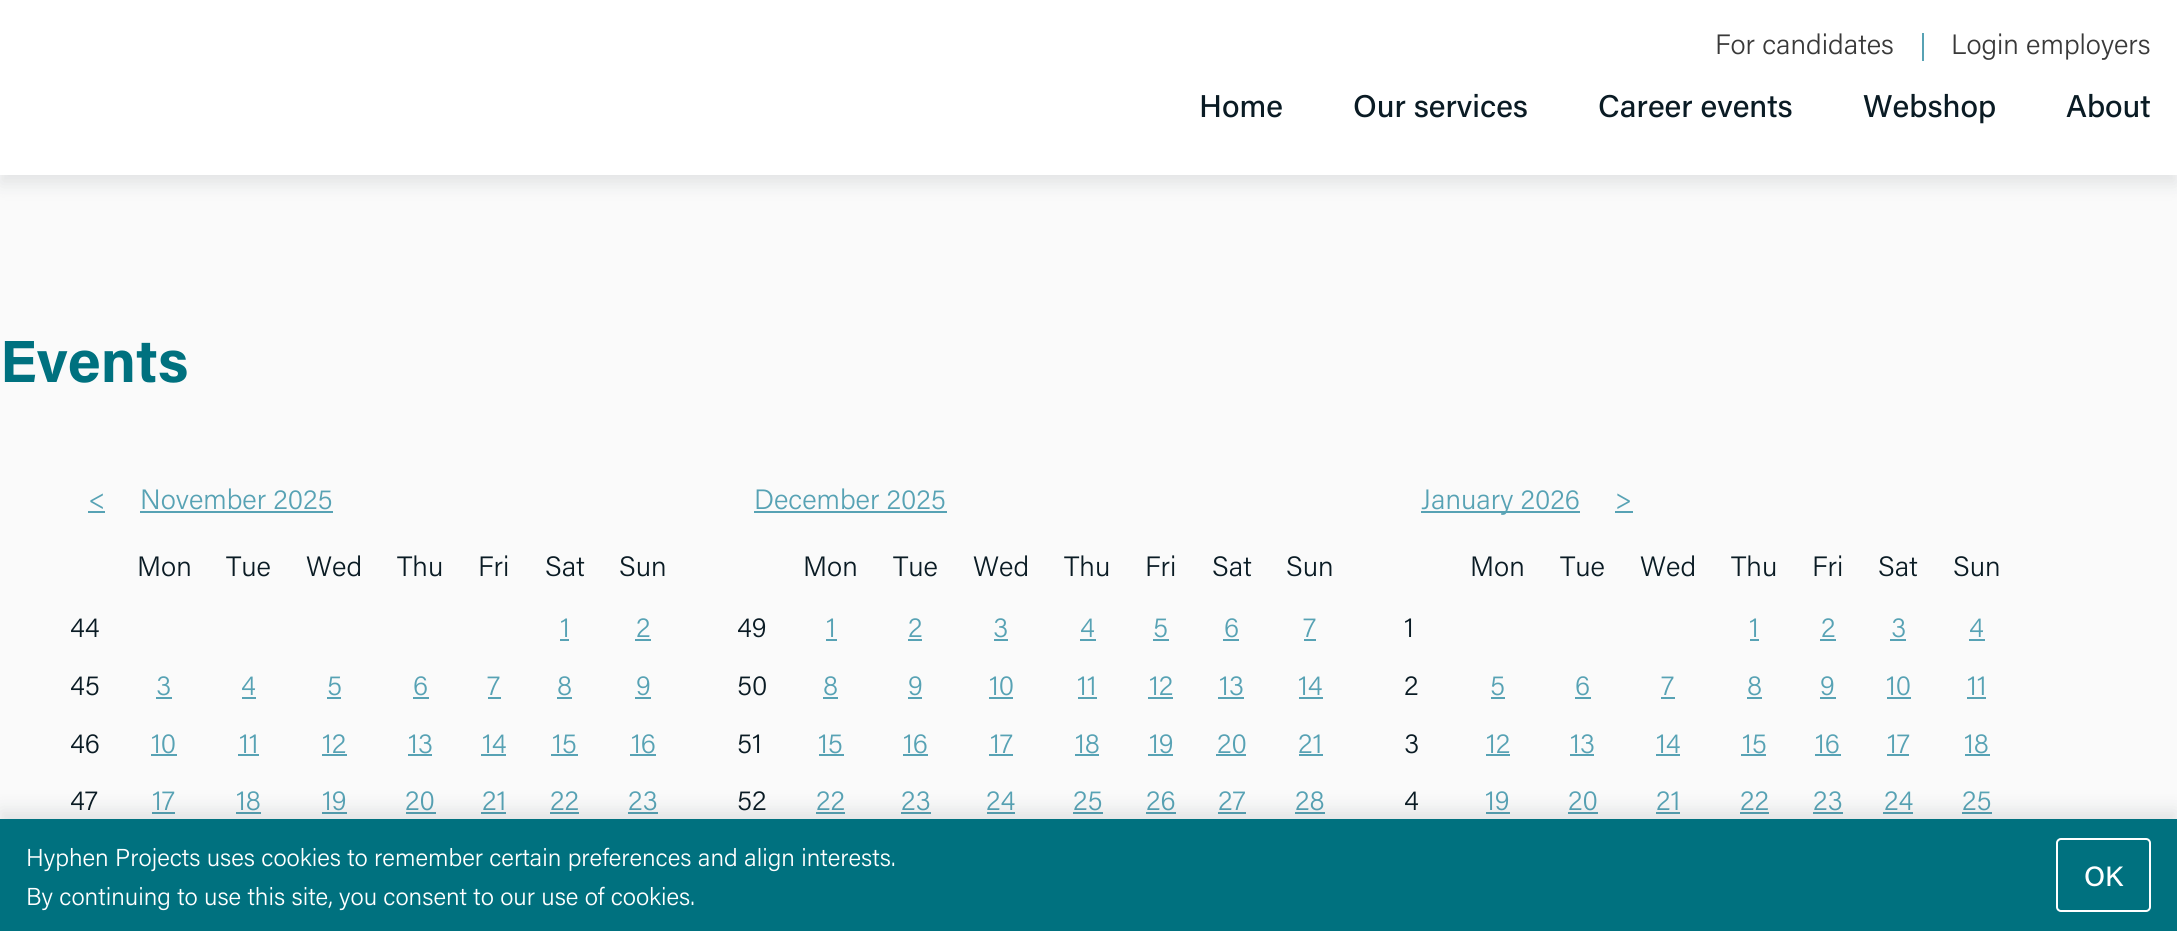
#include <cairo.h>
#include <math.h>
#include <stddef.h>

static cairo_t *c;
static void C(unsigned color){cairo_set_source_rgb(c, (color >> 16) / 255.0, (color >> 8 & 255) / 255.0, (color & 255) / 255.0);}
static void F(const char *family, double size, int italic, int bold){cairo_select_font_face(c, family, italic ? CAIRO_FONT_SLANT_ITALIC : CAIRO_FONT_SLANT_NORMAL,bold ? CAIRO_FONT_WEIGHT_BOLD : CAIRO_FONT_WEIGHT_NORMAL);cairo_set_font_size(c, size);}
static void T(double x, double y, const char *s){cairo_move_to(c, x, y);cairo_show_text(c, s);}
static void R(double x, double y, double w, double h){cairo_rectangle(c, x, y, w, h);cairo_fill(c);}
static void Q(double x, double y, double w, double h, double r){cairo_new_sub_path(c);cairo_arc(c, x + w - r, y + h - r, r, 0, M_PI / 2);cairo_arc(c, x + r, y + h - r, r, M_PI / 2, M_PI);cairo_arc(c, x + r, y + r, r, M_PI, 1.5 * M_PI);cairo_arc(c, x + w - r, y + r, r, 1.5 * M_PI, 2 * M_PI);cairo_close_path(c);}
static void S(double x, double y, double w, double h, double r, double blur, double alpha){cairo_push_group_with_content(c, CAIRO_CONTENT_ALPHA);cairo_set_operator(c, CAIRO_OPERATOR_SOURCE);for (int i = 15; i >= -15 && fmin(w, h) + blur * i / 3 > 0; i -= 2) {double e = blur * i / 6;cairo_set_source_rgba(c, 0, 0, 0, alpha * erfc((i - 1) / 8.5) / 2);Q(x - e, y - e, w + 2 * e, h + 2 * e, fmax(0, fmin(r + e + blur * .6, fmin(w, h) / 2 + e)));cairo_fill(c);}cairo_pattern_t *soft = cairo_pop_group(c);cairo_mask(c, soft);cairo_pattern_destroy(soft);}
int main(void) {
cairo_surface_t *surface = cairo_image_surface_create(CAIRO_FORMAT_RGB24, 2177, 931);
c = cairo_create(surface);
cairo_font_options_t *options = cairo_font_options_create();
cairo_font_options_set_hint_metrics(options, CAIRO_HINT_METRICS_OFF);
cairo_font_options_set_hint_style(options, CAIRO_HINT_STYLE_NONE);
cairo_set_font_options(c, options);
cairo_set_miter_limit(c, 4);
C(0xfafafa);
cairo_paint(c);
C(0x0a1b24);
S(0,9,2177,175,0,9,.1);
C(0xffffff);
R(0,0,2177,175);
F("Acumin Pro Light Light",28,0,0);
C(0x393939);
T(1715,54,"For candidates");
C(0x57a2b4);
R(1922,33,2,28);
C(0x393939);
T(1951,54,"Login employers");
F("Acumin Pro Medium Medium",31.5,0,0);
C(0x0a1b24);
T(1199,117,"Home");
T(1353,117,"Our services");
T(1598,117,"Career events");
T(1863,117,"Webshop");
T(2066,117,"About");
F("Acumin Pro",59.5,0,1);
C(0x00717f);
T(0,382,"Events");
F("Acumin Pro Light Light",28,0,0);
C(0x57a2b4);
T(88,509,"<");
R(88,511,17,2);
T(140,509,"November 2025");
R(140,511,193,2);
C(0x0a1b24);
T(137,576,"Mon");
T(226,576,"Tue");
T(306,576,"Wed");
T(397,576,"Thu");
T(478,576,"Fri");
T(545,576,"Sat");
T(619,576,"Sun");
T(70,637,"44");
C(0x57a2b4);
T(560,637,"1");
R(560,639,9,2);
T(636,637,"2");
R(635,639,16,2);
C(0x0a1b24);
T(70,695,"45");
C(0x57a2b4);
T(156,695,"3");
R(156,697,16,2);
T(241,695,"4");
R(242,697,14,2);
T(327,695,"5");
R(327,697,14,2);
T(413,695,"6");
R(413,697,16,2);
T(487,695,"7");
R(488,697,13,2);
T(557,695,"8");
R(557,697,15,2);
T(636,695,"9");
R(635,697,16,2);
C(0x0a1b24);
T(70,753,"46");
C(0x57a2b4);
T(151,753,"10");
R(151,754,26,2);
T(239,753,"11");
R(238,754,21,2);
T(322,753,"12");
R(322,754,25,2);
T(408,753,"13");
R(408,754,24,2);
T(482,753,"14");
R(481,754,25,2);
T(552,753,"15");
R(551,754,27,2);
T(631,753,"16");
R(630,754,26,2);
C(0x0a1b24);
T(70,810,"47");
C(0x57a2b4);
T(152,810,"17");
R(152,812,23,2);
T(236,810,"18");
R(236,812,25,2);
T(322,810,"19");
R(322,812,25,2);
T(405,810,"20");
R(406,812,30,2);
T(482,810,"21");
R(481,812,25,2);
T(550,810,"22");
R(550,812,29,2);
T(628,810,"23");
R(628,812,30,2);
T(754,509,"December 2025");
R(754,511,193,2);
C(0x0a1b24);
T(803,576,"Mon");
T(893,576,"Tue");
T(973,576,"Wed");
T(1064,576,"Thu");
T(1145,576,"Fri");
T(1212,576,"Sat");
T(1286,576,"Sun");
T(737,637,"49");
C(0x57a2b4);
T(826,637,"1");
R(826,639,11,2);
T(908,637,"2");
R(908,639,14,2);
T(993,637,"3");
R(994,639,14,2);
T(1080,637,"4");
R(1080,639,16,2);
T(1153,637,"5");
R(1153,639,16,2);
T(1224,637,"6");
R(1223,639,16,2);
T(1303,637,"7");
R(1304,639,12,2);
C(0x0a1b24);
T(737,695,"50");
C(0x57a2b4);
T(823,695,"8");
R(823,697,15,2);
T(908,695,"9");
R(908,697,14,2);
T(989,695,"10");
R(989,697,24,2);
T(1077,695,"11");
R(1078,697,19,2);
T(1149,695,"12");
R(1148,697,25,2);
T(1219,695,"13");
R(1218,697,26,2);
T(1298,695,"14");
R(1299,697,24,2);
C(0x0a1b24);
T(737,753,"51");
C(0x57a2b4);
T(818,753,"15");
R(819,754,25,2);
T(903,753,"16");
R(903,754,25,2);
T(990,753,"17");
R(989,754,24,2);
T(1075,753,"18");
R(1075,754,24,2);
T(1149,753,"19");
R(1148,754,25,2);
T(1217,753,"20");
R(1216,754,30,2);
T(1298,753,"21");
R(1299,754,24,2);
C(0x0a1b24);
T(737,810,"52");
C(0x57a2b4);
T(816,810,"22");
R(816,812,29,2);
T(901,810,"23");
R(901,812,30,2);
T(986,810,"24");
R(987,812,28,2);
T(1073,810,"25");
R(1073,812,30,2);
T(1146,810,"26");
R(1146,812,30,2);
T(1218,810,"27");
R(1218,812,28,2);
T(1295,810,"28");
R(1295,812,30,2);
R(1421,511,159,2);
T(1421,509,"January 2026");
T(1615,509,">");
R(1615,511,18,2);
C(0x0a1b24);
T(1470,576,"Mon");
T(1560,576,"Tue");
T(1640,576,"Wed");
T(1731,576,"Thu");
T(1812,576,"Fri");
T(1878,576,"Sat");
T(1953,576,"Sun");
T(1404,637,"1");
C(0x57a2b4);
T(1749,637,"1");
R(1750,639,9,2);
T(1821,637,"2");
R(1820,639,16,2);
T(1891,637,"3");
R(1890,639,16,2);
T(1969,637,"4");
R(1969,639,16,2);
C(0x0a1b24);
T(1404,695,"2");
C(0x57a2b4);
T(1490,695,"5");
R(1491,697,14,2);
T(1575,695,"6");
R(1575,697,16,2);
T(1661,695,"7");
R(1661,697,14,2);
T(1747,695,"8");
R(1747,697,15,2);
T(1820,695,"9");
R(1820,697,16,2);
T(1886,695,"10");
R(1887,697,24,2);
T(1967,695,"11");
R(1967,697,19,2);
C(0x0a1b24);
T(1404,753,"3");
C(0x57a2b4);
T(1486,753,"12");
R(1486,754,24,2);
T(1570,753,"13");
R(1570,754,24,2);
T(1656,753,"14");
R(1656,754,24,2);
T(1742,753,"15");
R(1741,754,25,2);
T(1815,753,"16");
R(1815,754,26,2);
T(1887,753,"17");
R(1887,754,22,2);
T(1964,753,"18");
R(1965,754,25,2);
C(0x0a1b24);
T(1404,810,"4");
C(0x57a2b4);
T(1485,810,"19");
R(1486,812,24,2);
T(1568,810,"20");
R(1568,812,30,2);
T(1656,810,"21");
R(1656,812,24,2);
T(1740,810,"22");
R(1740,812,29,2);
T(1813,810,"23");
R(1813,812,30,2);
T(1884,810,"24");
R(1883,812,30,2);
T(1962,810,"25");
R(1962,812,30,2);
C(0x0a1b24);
S(0,810,2177,112,0,9,.1);
C(0x00717f);
R(0,819,2177,112);
F("Acumin Pro Light Light",24.5,0,0);
C(0xffffff);
T(26,866,"Hyphen Projects uses cookies to remember certain preferences and align interests.");
Q(2057,839,93,72,4);
cairo_stroke(c);
F("Acumin Pro Medium Medium",28,0,0);
T(2084,886,"OK");
F("Acumin Pro Light Light",24.5,0,0);
T(26,905,"By continuing to use this site, you consent to our use of cookies.");
cairo_surface_write_to_png(surface, "o.png");
cairo_font_options_destroy(options);
cairo_destroy(c);
cairo_surface_destroy(surface);
return 0;
}
